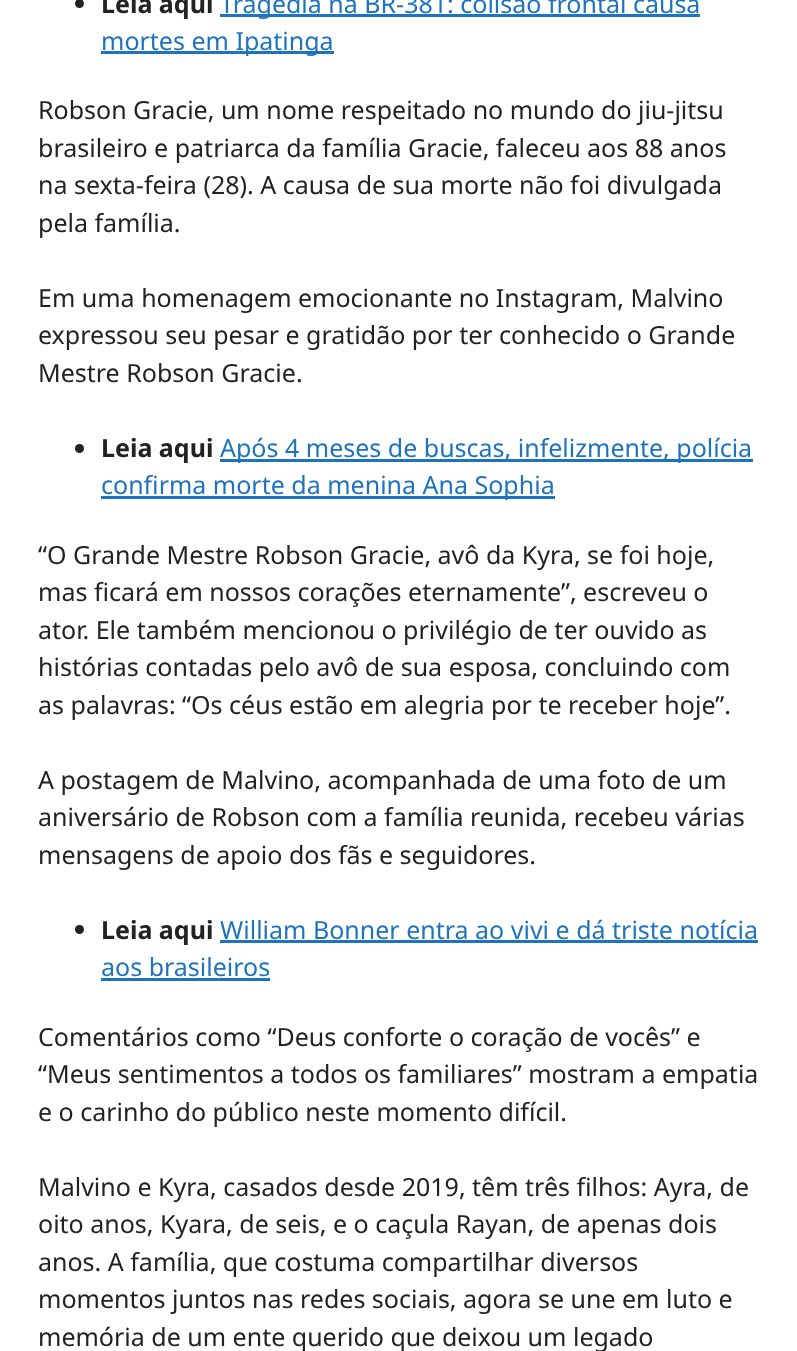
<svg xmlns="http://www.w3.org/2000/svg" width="797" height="1351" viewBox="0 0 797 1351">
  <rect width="100%" height="100%" fill="#ffffff"/>
  <circle cx="79.5" cy="3.5" r="4.5" fill="#222222"/>
  <text x="101" y="13" font-family="Noto Sans" font-size="25" font-weight="bold" fill="#222222">Leia aqui</text>
  <rect x="220" y="14" width="480" height="3" fill="#1e73be"/>
  <text x="220" y="13" font-family="Noto Sans" font-size="25" fill="#1e73be">Tragédia na BR-381: colisão frontal causa</text>
  <rect x="101" y="51" width="233" height="3" fill="#1e73be"/>
  <text x="101" y="50" font-family="Noto Sans" font-size="25" fill="#1e73be">mortes em Ipatinga</text>
  <text x="38" y="119" font-family="Noto Sans" font-size="25" fill="#222222">Robson Gracie, um nome respeitado no mundo do jiu-jitsu</text>
  <text x="38" y="157" font-family="Noto Sans" font-size="25" fill="#222222">brasileiro e patriarca da família Gracie, faleceu aos 88 anos</text>
  <text x="38" y="194" font-family="Noto Sans" font-size="25" fill="#222222">na sexta-feira (28). A causa de sua morte não foi divulgada</text>
  <text x="38" y="232" font-family="Noto Sans" font-size="25" fill="#222222">pela família.</text>
  <text x="38" y="307" font-family="Noto Sans" font-size="25" fill="#222222">Em uma homenagem emocionante no Instagram, Malvino</text>
  <text x="38" y="344" font-family="Noto Sans" font-size="25" fill="#222222">expressou seu pesar e gratidão por ter conhecido o Grande</text>
  <text x="38" y="382" font-family="Noto Sans" font-size="25" fill="#222222">Mestre Robson Gracie.</text>
  <circle cx="79.5" cy="448.5" r="4.5" fill="#222222"/>
  <text x="101" y="457" font-family="Noto Sans" font-size="25" font-weight="bold" fill="#222222">Leia aqui</text>
  <rect x="220" y="459" width="533" height="3" fill="#1e73be"/>
  <text x="220" y="457" font-family="Noto Sans" font-size="25" fill="#1e73be">Após 4 meses de buscas, infelizmente, polícia</text>
  <rect x="101" y="496" width="454" height="3" fill="#1e73be"/>
  <text x="101" y="494" font-family="Noto Sans" font-size="25" fill="#1e73be">confirma morte da menina Ana Sophia</text>
  <text x="38" y="564" font-family="Noto Sans" font-size="25" fill="#222222">“O Grande Mestre Robson Gracie, avô da Kyra, se foi hoje,</text>
  <text x="38" y="601" font-family="Noto Sans" font-size="25" fill="#222222">mas ficará em nossos corações eternamente”, escreveu o</text>
  <text x="38" y="639" font-family="Noto Sans" font-size="25" fill="#222222">ator. Ele também mencionou o privilégio de ter ouvido as</text>
  <text x="38" y="676" font-family="Noto Sans" font-size="25" fill="#222222">histórias contadas pelo avô de sua esposa, concluindo com</text>
  <text x="38" y="714" font-family="Noto Sans" font-size="25" fill="#222222">as palavras: “Os céus estão em alegria por te receber hoje”.</text>
  <text x="38" y="789" font-family="Noto Sans" font-size="25" fill="#222222">A postagem de Malvino, acompanhada de uma foto de um</text>
  <text x="38" y="826" font-family="Noto Sans" font-size="25" fill="#222222">aniversário de Robson com a família reunida, recebeu várias</text>
  <text x="38" y="864" font-family="Noto Sans" font-size="25" fill="#222222">mensagens de apoio dos fãs e seguidores.</text>
  <circle cx="79.5" cy="929.5" r="4.5" fill="#222222"/>
  <text x="101" y="939" font-family="Noto Sans" font-size="25" font-weight="bold" fill="#222222">Leia aqui</text>
  <text x="220" y="939" font-family="Noto Sans" font-size="25" fill="#1e73be">William Bonner entra ao vivi e dá triste notícia</text>
  <rect x="220" y="940" width="538" height="3" fill="#1e73be"/>
  <text x="101" y="976" font-family="Noto Sans" font-size="25" fill="#1e73be">aos brasileiros</text>
  <rect x="101" y="978" width="169" height="3" fill="#1e73be"/>
  <text x="38" y="1046" font-family="Noto Sans" font-size="25" fill="#222222">Comentários como “Deus conforte o coração de vocês” e</text>
  <text x="38" y="1083" font-family="Noto Sans" font-size="25" fill="#222222">“Meus sentimentos a todos os familiares” mostram a empatia</text>
  <text x="38" y="1121" font-family="Noto Sans" font-size="25" fill="#222222">e o carinho do público neste momento difícil.</text>
  <text x="38" y="1196" font-family="Noto Sans" font-size="25" fill="#222222">Malvino e Kyra, casados desde 2019, têm três filhos: Ayra, de</text>
  <text x="38" y="1233" font-family="Noto Sans" font-size="25" fill="#222222">oito anos, Kyara, de seis, e o caçula Rayan, de apenas dois</text>
  <text x="38" y="1271" font-family="Noto Sans" font-size="25" fill="#222222">anos. A família, que costuma compartilhar diversos</text>
  <text x="38" y="1308" font-family="Noto Sans" font-size="25" fill="#222222">momentos juntos nas redes sociais, agora se une em luto e</text>
  <text x="38" y="1346" font-family="Noto Sans" font-size="25" fill="#222222">memória de um ente querido que deixou um legado</text>
</svg>
